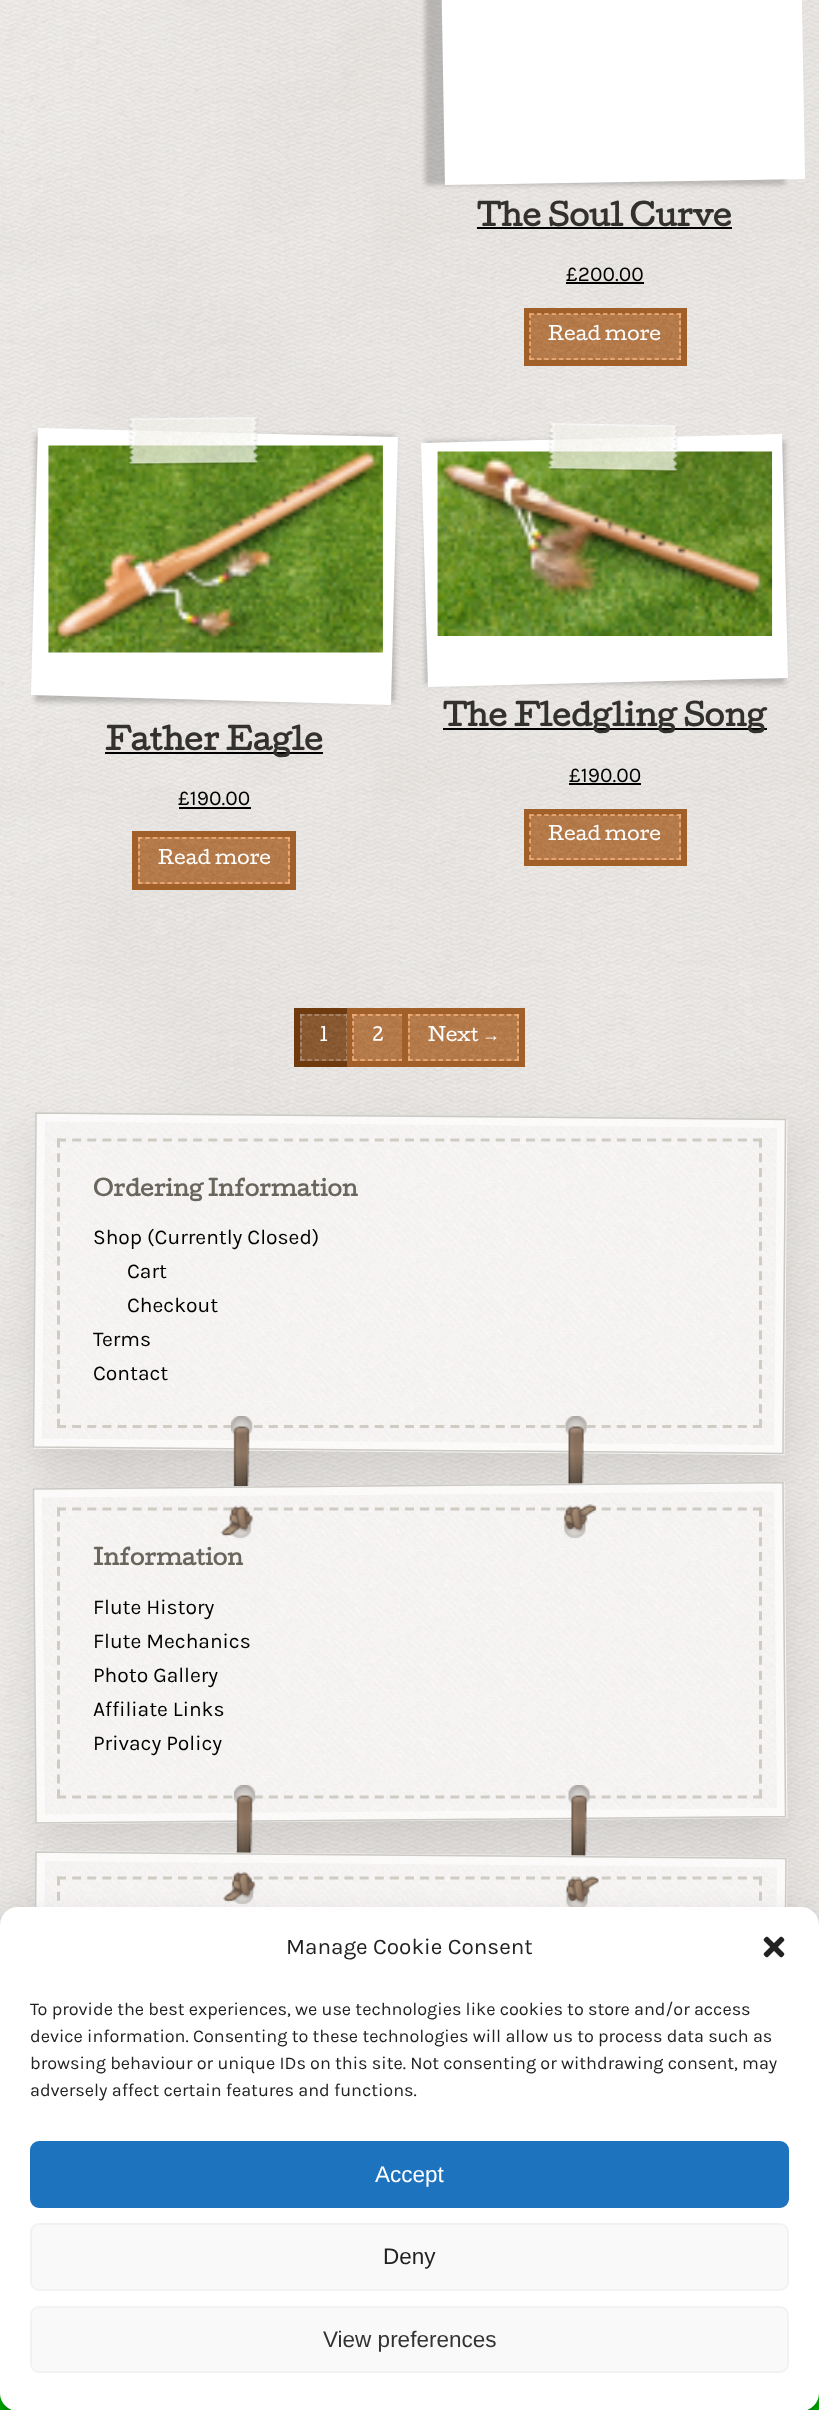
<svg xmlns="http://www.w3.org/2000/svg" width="819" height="2410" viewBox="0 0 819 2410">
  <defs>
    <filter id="blur1" x="-50%" y="-200%" width="200%" height="500%"><feGaussianBlur stdDeviation="2.5"/></filter>
    <filter id="blur2" x="-50%" y="-200%" width="200%" height="500%"><feGaussianBlur stdDeviation="21"/></filter>
    <filter id="blur3" x="-50%" y="-200%" width="200%" height="500%"><feGaussianBlur stdDeviation="4.5"/></filter>
    <filter id="blur4" x="-50%" y="-200%" width="200%" height="500%"><feGaussianBlur stdDeviation="15"/></filter>
  </defs>
  <rect width="100%" height="100%" fill="#ffffff"/>
  <image x="0" y="0" width="819" height="1925" href="img1.png"/>
  <image x="0" y="0" width="819" height="1925" href="img2.png"/>
  <rect x="425" y="-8" width="360" height="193" fill="#000000" fill-opacity="0.2" filter="url(#blur1)"/>
  <path d="M404-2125L765-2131L805 179L445 185Z" fill="#ffffff"/>
  <text x="477" y="226" font-family="Cutive" font-size="29.1" font-weight="bold" fill="#32312d">The Soul Curve</text>
  <rect x="477" y="227" width="255" height="2" fill="#000000"/>
  <text x="566" y="281" font-family="Karla" font-size="21" fill="#000000">£200.00</text>
  <rect x="566" y="282" width="78" height="2" fill="#000000"/>
  <rect x="527" y="311" width="157" height="52" fill="none" stroke="#a15f2a" stroke-width="6"/>
  <rect x="530" y="314" width="151" height="46" fill="#c3814c"/>
  <image x="529" y="313" width="152" height="47" href="img3.png"/>
  <path d="M529.5 314H681" fill="none" stroke="#f6b47f" stroke-width="1.5" stroke-dasharray="4.5 2.85"/>
  <path d="M680 313.5V360" fill="none" stroke="#f6b47f" stroke-width="1.5" stroke-dasharray="4.5 2.5"/>
  <path d="M529.5 359H681" fill="none" stroke="#f6b47f" stroke-width="1.5" stroke-dasharray="4.5 2.85"/>
  <path d="M530 313.5V360" fill="none" stroke="#f6b47f" stroke-width="1.5" stroke-dasharray="4.5 2.5"/>
  <text x="548" y="340" font-family="Cutive" font-size="18" fill="#ffffff">Read more</text>
  <rect x="35" y="435" width="360" height="267" fill="#000000" fill-opacity="0.2" filter="url(#blur1)"/>
  <path d="M38 428L398 437L391 705L31 695Z" fill="#ffffff"/>
  <image x="48" y="445" width="335" height="208" href="img5.png"/>
  <image x="128" y="417" width="131" height="49" href="img4.png"/>
  <rect x="105" y="752" width="218" height="2" fill="#000000"/>
  <text x="105" y="750" font-family="Cutive" font-size="29.1" font-weight="bold" fill="#32312d">Father Eagle</text>
  <text x="178" y="805" font-family="Karla" font-size="21" fill="#000000">£190.00</text>
  <rect x="179" y="807" width="72" height="2" fill="#000000"/>
  <rect x="135" y="834" width="158" height="53" fill="none" stroke="#a15f2a" stroke-width="6"/>
  <rect x="138" y="837" width="152" height="47" fill="#c3814c"/>
  <image x="138" y="837" width="152" height="47" href="img6.png"/>
  <path d="M138 838H289.5" fill="none" stroke="#f6b47f" stroke-width="1.5" stroke-dasharray="4.5 2.85"/>
  <path d="M289 837V883.5" fill="none" stroke="#f6b47f" stroke-width="1.5" stroke-dasharray="4.5 2.5"/>
  <path d="M138 883H289.5" fill="none" stroke="#f6b47f" stroke-width="1.5" stroke-dasharray="4.5 2.85"/>
  <path d="M139 837V883.5" fill="none" stroke="#f6b47f" stroke-width="1.5" stroke-dasharray="4.5 2.5"/>
  <text x="158" y="864" font-family="Cutive" font-size="18" fill="#ffffff">Read more</text>
  <rect x="425" y="441" width="360" height="243" fill="#000000" fill-opacity="0.2" filter="url(#blur1)"/>
  <path d="M421 443L782 434L788 678L428 687Z" fill="#ffffff"/>
  <image x="437" y="451" width="336" height="185" href="img8.png"/>
  <image x="548" y="423" width="130" height="50" href="img7.png"/>
  <rect x="443" y="728" width="324" height="2" fill="#000000"/>
  <text x="443" y="726" font-family="Cutive" font-size="29.1" font-weight="bold" fill="#32312d">The Fledgling Song</text>
  <text x="569" y="782" font-family="Karla" font-size="21" fill="#000000">£190.00</text>
  <rect x="569" y="783" width="72" height="2" fill="#000000"/>
  <rect x="527" y="812" width="157" height="51" fill="none" stroke="#a15f2a" stroke-width="6"/>
  <rect x="530" y="815" width="151" height="45" fill="#c3814c"/>
  <image x="529" y="814" width="152" height="46" href="img9.png"/>
  <path d="M529.5 815H681" fill="none" stroke="#f6b47f" stroke-width="1.5" stroke-dasharray="4.5 2.85"/>
  <path d="M680 814.5V859.5" fill="none" stroke="#f6b47f" stroke-width="1.5" stroke-dasharray="4.5 3.6"/>
  <path d="M529.5 859H681" fill="none" stroke="#f6b47f" stroke-width="1.5" stroke-dasharray="4.5 2.85"/>
  <path d="M530 814.5V859.5" fill="none" stroke="#f6b47f" stroke-width="1.5" stroke-dasharray="4.5 3.6"/>
  <text x="548" y="840" font-family="Cutive" font-size="18" fill="#ffffff">Read more</text>
  <rect x="297" y="1011" width="54" height="53" fill="none" stroke="#703a0f" stroke-width="6"/>
  <rect x="300" y="1014" width="47" height="47" fill="#925c31"/>
  <image x="300" y="1014" width="47" height="47" href="img10.png"/>
  <path d="M300 1015H348" fill="none" stroke="#af9179" stroke-width="1.5" stroke-dasharray="4.5 2.75"/>
  <path d="M347 1014V1060.5" fill="none" stroke="#af9179" stroke-width="1.5" stroke-dasharray="4.5 2.5"/>
  <path d="M300 1060H348" fill="none" stroke="#af9179" stroke-width="1.5" stroke-dasharray="4.5 2.75"/>
  <path d="M301 1014V1060.5" fill="none" stroke="#af9179" stroke-width="1.5" stroke-dasharray="4.5 2.5"/>
  <text x="319" y="1041" font-family="Cutive" font-size="18" fill="#ffffff">1</text>
  <rect x="350" y="1011" width="57" height="53" fill="none" stroke="#a15f2a" stroke-width="6"/>
  <rect x="353" y="1014" width="49" height="47" fill="#c3814c"/>
  <image x="352" y="1014" width="50" height="47" href="img11.png"/>
  <path d="M352.5 1015H403.5M352.5 1060H403.5" fill="none" stroke="#f6b47f" stroke-width="1.5" stroke-dasharray="4.5 3.25"/>
  <path d="M353 1014V1060.5" fill="none" stroke="#f6b47f" stroke-width="1.5" stroke-dasharray="4.5 2.5"/>
  <text x="372" y="1041" font-family="Cutive" font-size="18" fill="#ffffff">2</text>
  <rect x="405" y="1011" width="117" height="53" fill="none" stroke="#a15f2a" stroke-width="6"/>
  <rect x="408" y="1014" width="111" height="47" fill="#c3814c"/>
  <image x="408" y="1014" width="111" height="47" href="img12.png"/>
  <path d="M408 1015H519" fill="none" stroke="#f6b47f" stroke-width="1.5" stroke-dasharray="4.5 3.1"/>
  <path d="M518 1014V1060.5" fill="none" stroke="#f6b47f" stroke-width="1.5" stroke-dasharray="4.5 2.5"/>
  <path d="M408 1060H519" fill="none" stroke="#f6b47f" stroke-width="1.5" stroke-dasharray="4.5 3.1"/>
  <path d="M409 1014V1060.5" fill="none" stroke="#f6b47f" stroke-width="1.5" stroke-dasharray="4.5 2.5"/>
  <text x="428" y="1041" font-family="Cutive" font-size="18" fill="#ffffff">Next</text>
  <text x="482" y="1041" font-family="Liberation Sans" font-size="18" fill="#ffffff">→</text>
  <rect x="35" y="1137" width="750" height="335" fill="#000000" fill-opacity="0.1" filter="url(#blur2)"/>
  <path d="M35 1112L786 1119L784 1454L33 1448Z" fill="#e5e4df"/>
  <image x="33" y="1112" width="755" height="344" href="img13.png"/>
  <path d="M41 1117.5L781 1124L778 1449L38 1442.5Z" fill="none" stroke="#ffffff" stroke-opacity="0.6" stroke-width="8"/>
  <path d="M36 1113L785.5 1119.5L783 1453.5L33.5 1447Z" fill="none" stroke="#cbcac5" stroke-width="1.5"/>
  <path d="M57 1140H762" fill="none" stroke="#ceccc3" stroke-width="3" stroke-dasharray="9 6.13"/>
  <path d="M760.5 1138.5V1428" fill="none" stroke="#ceccc3" stroke-width="3" stroke-dasharray="9 5.76"/>
  <path d="M57 1426.5H762" fill="none" stroke="#ceccc3" stroke-width="3" stroke-dasharray="9 6.13"/>
  <path d="M58.5 1138.5V1428" fill="none" stroke="#ceccc3" stroke-width="3" stroke-dasharray="9 5.76"/>
  <text x="93" y="1196" font-family="Cutive" font-size="21" font-weight="bold" fill="#68665d">Ordering Information</text>
  <text x="93" y="1244" font-family="Karla" font-size="21" fill="#000000">Shop (Currently Closed)</text>
  <text x="127" y="1278" font-family="Karla" font-size="21" fill="#000000">Cart</text>
  <text x="127" y="1312" font-family="Karla" font-size="21" fill="#000000">Checkout</text>
  <text x="93" y="1346" font-family="Karla" font-size="21" fill="#000000">Terms</text>
  <text x="93" y="1380" font-family="Karla" font-size="21" fill="#000000">Contact</text>
  <image x="231" y="1416" width="356" height="71" href="img14.png"/>
  <rect x="35" y="1506" width="750" height="336" fill="#000000" fill-opacity="0.1" filter="url(#blur2)"/>
  <path d="M33 1488L784 1482L786 1817L35 1824Z" fill="#e5e4df"/>
  <image x="33" y="1481" width="755" height="344" href="img15.png"/>
  <path d="M38 1493.5L778 1487.5L781 1812L41 1818.5Z" fill="none" stroke="#ffffff" stroke-opacity="0.6" stroke-width="8"/>
  <path d="M33.5 1489L783 1482.5L785.5 1816.5L36 1823Z" fill="none" stroke="#cbcac5" stroke-width="1.5"/>
  <path d="M57 1509H762" fill="none" stroke="#ceccc3" stroke-width="3" stroke-dasharray="9 6.13"/>
  <image x="220" y="1504" width="377" height="35" href="img16.png"/>
  <path d="M760.5 1507.5V1798.5" fill="none" stroke="#ceccc3" stroke-width="3" stroke-dasharray="9 5.83"/>
  <path d="M57 1797H762" fill="none" stroke="#ceccc3" stroke-width="3" stroke-dasharray="9 6.13"/>
  <path d="M58.5 1507.5V1798.5" fill="none" stroke="#ceccc3" stroke-width="3" stroke-dasharray="9 5.83"/>
  <text x="93" y="1565" font-family="Cutive" font-size="21" font-weight="bold" fill="#68665d">Information</text>
  <text x="93" y="1614" font-family="Karla" font-size="21" fill="#000000">Flute History</text>
  <text x="93" y="1648" font-family="Karla" font-size="21" fill="#000000">Flute Mechanics</text>
  <text x="93" y="1682" font-family="Karla" font-size="21" fill="#000000">Photo Gallery</text>
  <text x="93" y="1716" font-family="Karla" font-size="21" fill="#000000">Affiliate Links</text>
  <text x="93" y="1750" font-family="Karla" font-size="21" fill="#000000">Privacy Policy</text>
  <image x="234" y="1785" width="356" height="71" href="img17.png"/>
  <rect x="35" y="1875" width="750" height="345" fill="#000000" fill-opacity="0.1" filter="url(#blur2)"/>
  <path d="M35 1851L787 1858L784 2202L32 2195Z" fill="#e5e4df"/>
  <image x="35" y="1850" width="753" height="57" href="img18.png"/>
  <path d="M41 1857L781 1863.5L778 2196L38 2190Z" fill="none" stroke="#ffffff" stroke-opacity="0.6" stroke-width="8"/>
  <path d="M36 1852L786 1858.5L783 2201L33 2194.5Z" fill="none" stroke="#cbcac5" stroke-width="1.5"/>
  <path d="M57 1878H762" fill="none" stroke="#ceccc3" stroke-width="3" stroke-dasharray="9 6.13"/>
  <image x="222" y="1871" width="377" height="36" href="img19.png"/>
  <path d="M760.5 1876.5V2176.5" fill="none" stroke="#ceccc3" stroke-width="3" stroke-dasharray="9 6.31"/>
  <path d="M58.5 1876.5V2176.5" fill="none" stroke="#ceccc3" stroke-width="3" stroke-dasharray="9 6.31"/>
  <rect x="0" y="2393" width="819" height="17" fill="#00c000"/>
  <rect x="0" y="1916" width="819" height="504" rx="18" fill="#000000" fill-opacity="0.23" filter="url(#blur3)"/>
  <rect x="0" y="1922" width="819" height="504" rx="18" fill="#000000" fill-opacity="0.19" filter="url(#blur4)"/>
  <rect x="0" y="1907" width="819" height="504" rx="18" fill="#ffffff"/>
  <text x="286" y="1954" font-family="Karla" font-size="22.5" fill="#222222">Manage Cookie Consent</text>
  <image x="763" y="1936" width="22" height="22" href="img20.png"/>
  <text x="30" y="2015" font-family="Karla" font-size="18" fill="#222222">To provide the best experiences, we use technologies like cookies to store and/or access</text>
  <text x="30" y="2042" font-family="Karla" font-size="18" fill="#222222">device information. Consenting to these technologies will allow us to process data such as</text>
  <text x="30" y="2069" font-family="Karla" font-size="18" fill="#222222">browsing behaviour or unique IDs on this site. Not consenting or withdrawing consent, may</text>
  <text x="30" y="2096" font-family="Karla" font-size="18" fill="#222222">adversely affect certain features and functions.</text>
  <rect x="31" y="2142" width="757" height="65" rx="8" fill="#1e73be" stroke="#1e73be" stroke-width="2"/>
  <text x="375" y="2182" font-family="Liberation Sans" font-size="22.5" fill="#ffffff">Accept</text>
  <rect x="31" y="2224" width="757" height="66" rx="8" fill="#f9f9f9" stroke="#f2f2f2" stroke-width="2"/>
  <text x="383" y="2264" font-family="Liberation Sans" font-size="22.5" fill="#222222">Deny</text>
  <rect x="31" y="2307" width="757" height="65" rx="8" fill="#f9f9f9" stroke="#f2f2f2" stroke-width="2"/>
  <text x="323" y="2347" font-family="Liberation Sans" font-size="22.5" fill="#333333">View preferences</text>
</svg>
